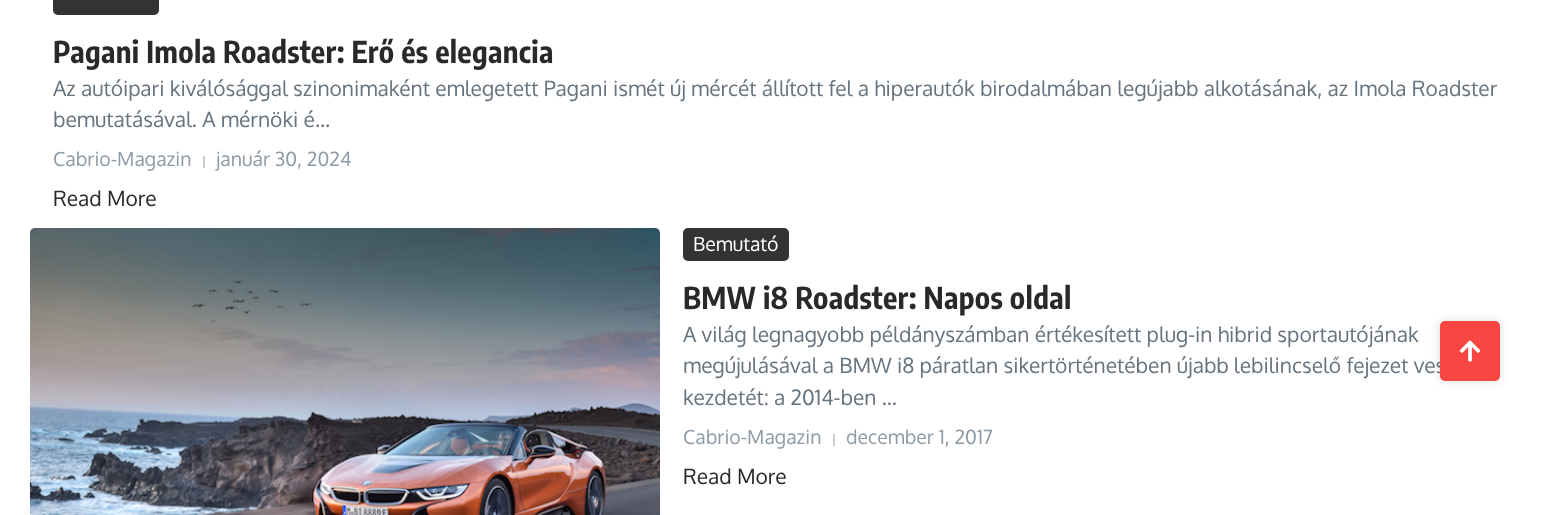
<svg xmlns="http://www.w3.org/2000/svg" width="1544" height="515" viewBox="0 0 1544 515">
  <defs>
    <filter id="blur1" x="-50%" y="-200%" width="200%" height="500%"><feGaussianBlur stdDeviation="5"/></filter>
  </defs>
  <rect width="100%" height="100%" fill="#ffffff"/>
  <rect x="53" y="-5" width="106" height="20" rx="5" fill="#333333"/>
  <text x="53" y="63" font-family="Encode Sans Condensed" font-size="30" font-weight="bold" letter-spacing="0.3" fill="#292929">Pagani Imola Roadster: Erő és elegancia</text>
  <text x="53" y="96" font-family="Oxygen" font-size="21" fill="#67737e">Az autóipari kiválósággal szinonimaként emlegetett Pagani ismét új mércét állított fel a hiperautók birodalmában legújabb alkotásának, az Imola Roadster</text>
  <text x="53" y="127" font-family="Oxygen" font-size="21" fill="#67737e">bemutatásával. A mérnöki é...</text>
  <text x="53" y="166" font-family="Oxygen" font-size="19.5" fill="#8e9ba7">Cabrio-Magazin</text>
  <rect x="203" y="156" width="2" height="12" fill="#c7cdd3"/>
  <text x="216" y="166" font-family="Oxygen" font-size="19.5" fill="#8e9ba7">január 30, 2024</text>
  <text x="53" y="206" font-family="Oxygen" font-size="21" fill="#292929">Read More</text>
  <image x="30" y="228" width="630" height="287" href="img1.png"/>
  <rect x="683" y="228" width="106" height="33" rx="5" fill="#333333"/>
  <text x="693" y="251" font-family="Oxygen" font-size="19.5" fill="#ffffff">Bemutató</text>
  <text x="683" y="309" font-family="Encode Sans Condensed" font-size="30" font-weight="bold" letter-spacing="0.3" fill="#292929">BMW i8 Roadster: Napos oldal</text>
  <text x="683" y="342" font-family="Oxygen" font-size="21" fill="#67737e">A világ legnagyobb példányszámban értékesített plug-in hibrid sportautójának</text>
  <text x="683" y="373" font-family="Oxygen" font-size="21" fill="#67737e">megújulásával a BMW i8 páratlan sikertörténetében újabb lebilincselő fejezet ves</text>
  <text x="683" y="405" font-family="Oxygen" font-size="21" fill="#67737e">kezdetét: a 2014-ben ...</text>
  <text x="683" y="444" font-family="Oxygen" font-size="19.5" fill="#8e9ba7">Cabrio-Magazin</text>
  <rect x="833" y="434" width="2" height="12" fill="#c7cdd3"/>
  <text x="846" y="444" font-family="Oxygen" font-size="19.5" fill="#8e9ba7">december 1, 2017</text>
  <text x="683" y="484" font-family="Oxygen" font-size="21" fill="#292929">Read More</text>
  <rect x="1440" y="321" width="60" height="60" rx="5" fill="#000000" fill-opacity="0.15" filter="url(#blur1)"/>
  <rect x="1440" y="321" width="60" height="60" rx="5" fill="#f84643"/>
  <image x="1459" y="340" width="22" height="22" href="img2.png"/>
</svg>
